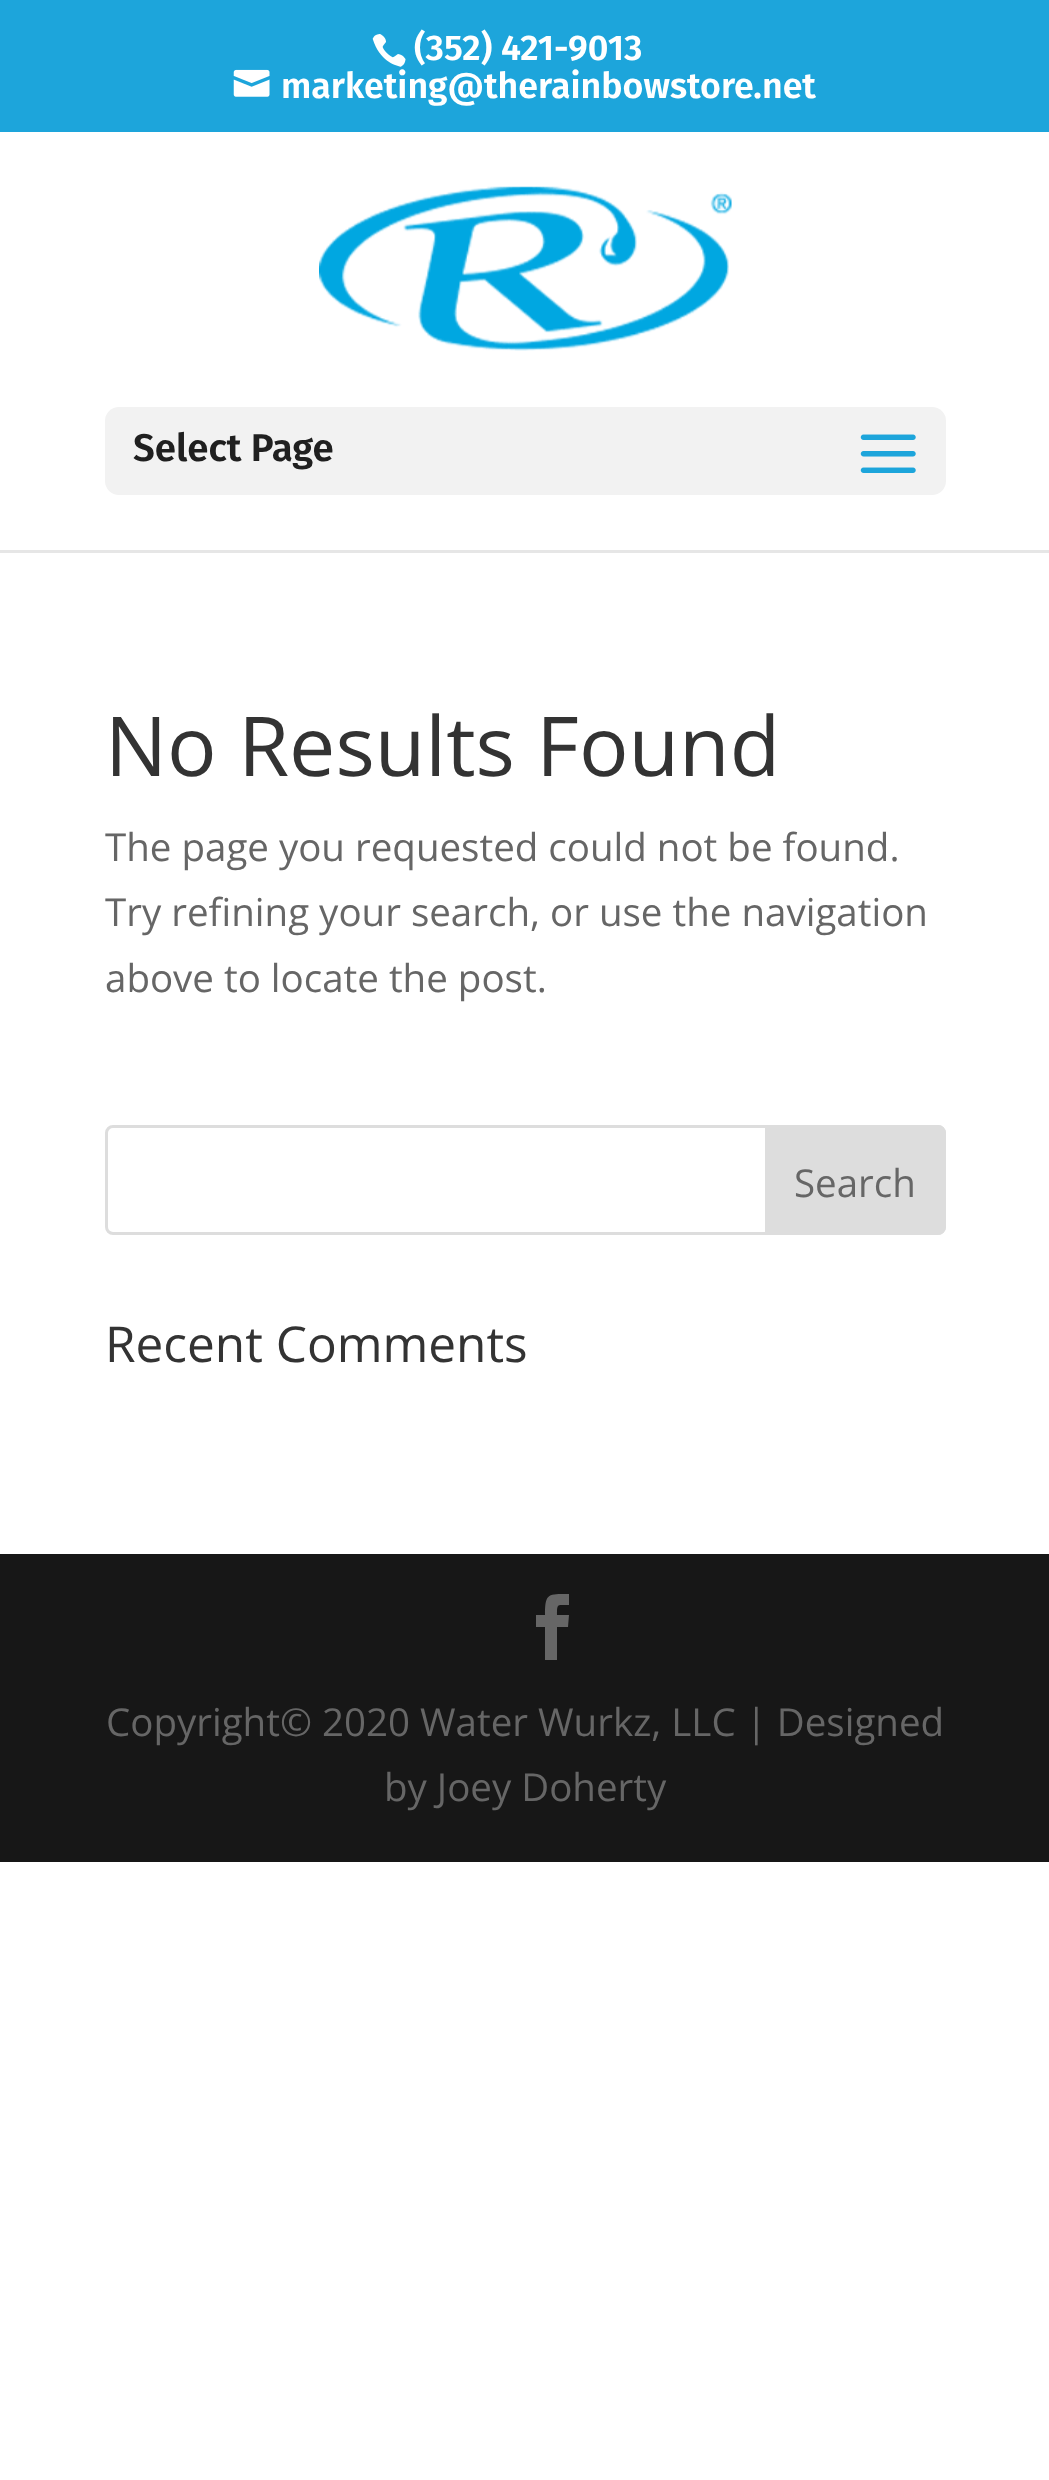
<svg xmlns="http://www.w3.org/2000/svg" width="1049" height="2480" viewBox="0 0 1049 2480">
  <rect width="100%" height="100%" fill="#ffffff"/>
  <rect x="0" y="0" width="1049" height="132" fill="#1da5db"/>
  <image x="372" y="34" width="34" height="33" href="img1.png"/>
  <text x="414" y="60" font-family="Fira Sans" font-size="35.75" font-weight="600" fill="#ffffff">(352) 421-9013</text>
  <image x="233" y="69" width="37" height="28" href="img2.png"/>
  <text x="281" y="98" font-family="Fira Sans" font-size="35.75" font-weight="600" fill="#ffffff">marketing@therainbowstore.net</text>
  <path d="M0 550V553H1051V135H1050V550Z" fill="#e6e6e6"/>
  <image x="319" y="186" width="413" height="165" href="img3.png"/>
  <rect x="105" y="407" width="841" height="88" rx="14" fill="#f2f2f2"/>
  <text x="133" y="461" font-family="Fira Sans" font-size="38.5" font-weight="600" fill="#202020">Select Page</text>
  <image x="860" y="434" width="56" height="39" href="img4.png"/>
  <text x="105" y="776" font-family="Open Sans" font-size="82.5" fill="#333333">No Results Found</text>
  <text x="105" y="861" font-family="Open Sans" font-size="38.5" fill="#666666">The page you requested could not be found.</text>
  <text x="105" y="926" font-family="Open Sans" font-size="38.5" fill="#666666">Try refining your search, or use the navigation</text>
  <text x="105" y="992" font-family="Open Sans" font-size="38.5" fill="#666666">above to locate the post.</text>
  <rect x="106.5" y="1126.5" width="838" height="107" rx="6.5" fill="none" stroke="#dddddd" stroke-width="3"/>
  <path d="M766.5 1126.5H938C941.5 1126.5 944.5 1129.5 944.5 1133V1227C944.5 1230.5 941.5 1233.5 938 1233.5H766.5Z" fill="#dddddd" stroke="#dddddd" stroke-width="3"/>
  <text x="794" y="1197" font-family="Open Sans" font-size="38.5" fill="#666666">Search</text>
  <text x="105" y="1362" font-family="Open Sans" font-size="49.5" fill="#333333">Recent Comments</text>
  <rect x="0" y="1554" width="1049" height="308" fill="#171717"/>
  <path d="M545 1660H557V1627H568L569 1615H557C557 1603 557 1605 569 1605V1594C548 1594 545 1593 545 1615H536V1627H545Z" fill="#666666"/>
  <text x="106" y="1736" font-family="Open Sans" font-size="38.5" fill="#666666">Copyright© 2020 Water Wurkz, LLC | Designed</text>
  <text x="384" y="1801" font-family="Open Sans" font-size="38.5" fill="#666666">by Joey Doherty</text>
</svg>
